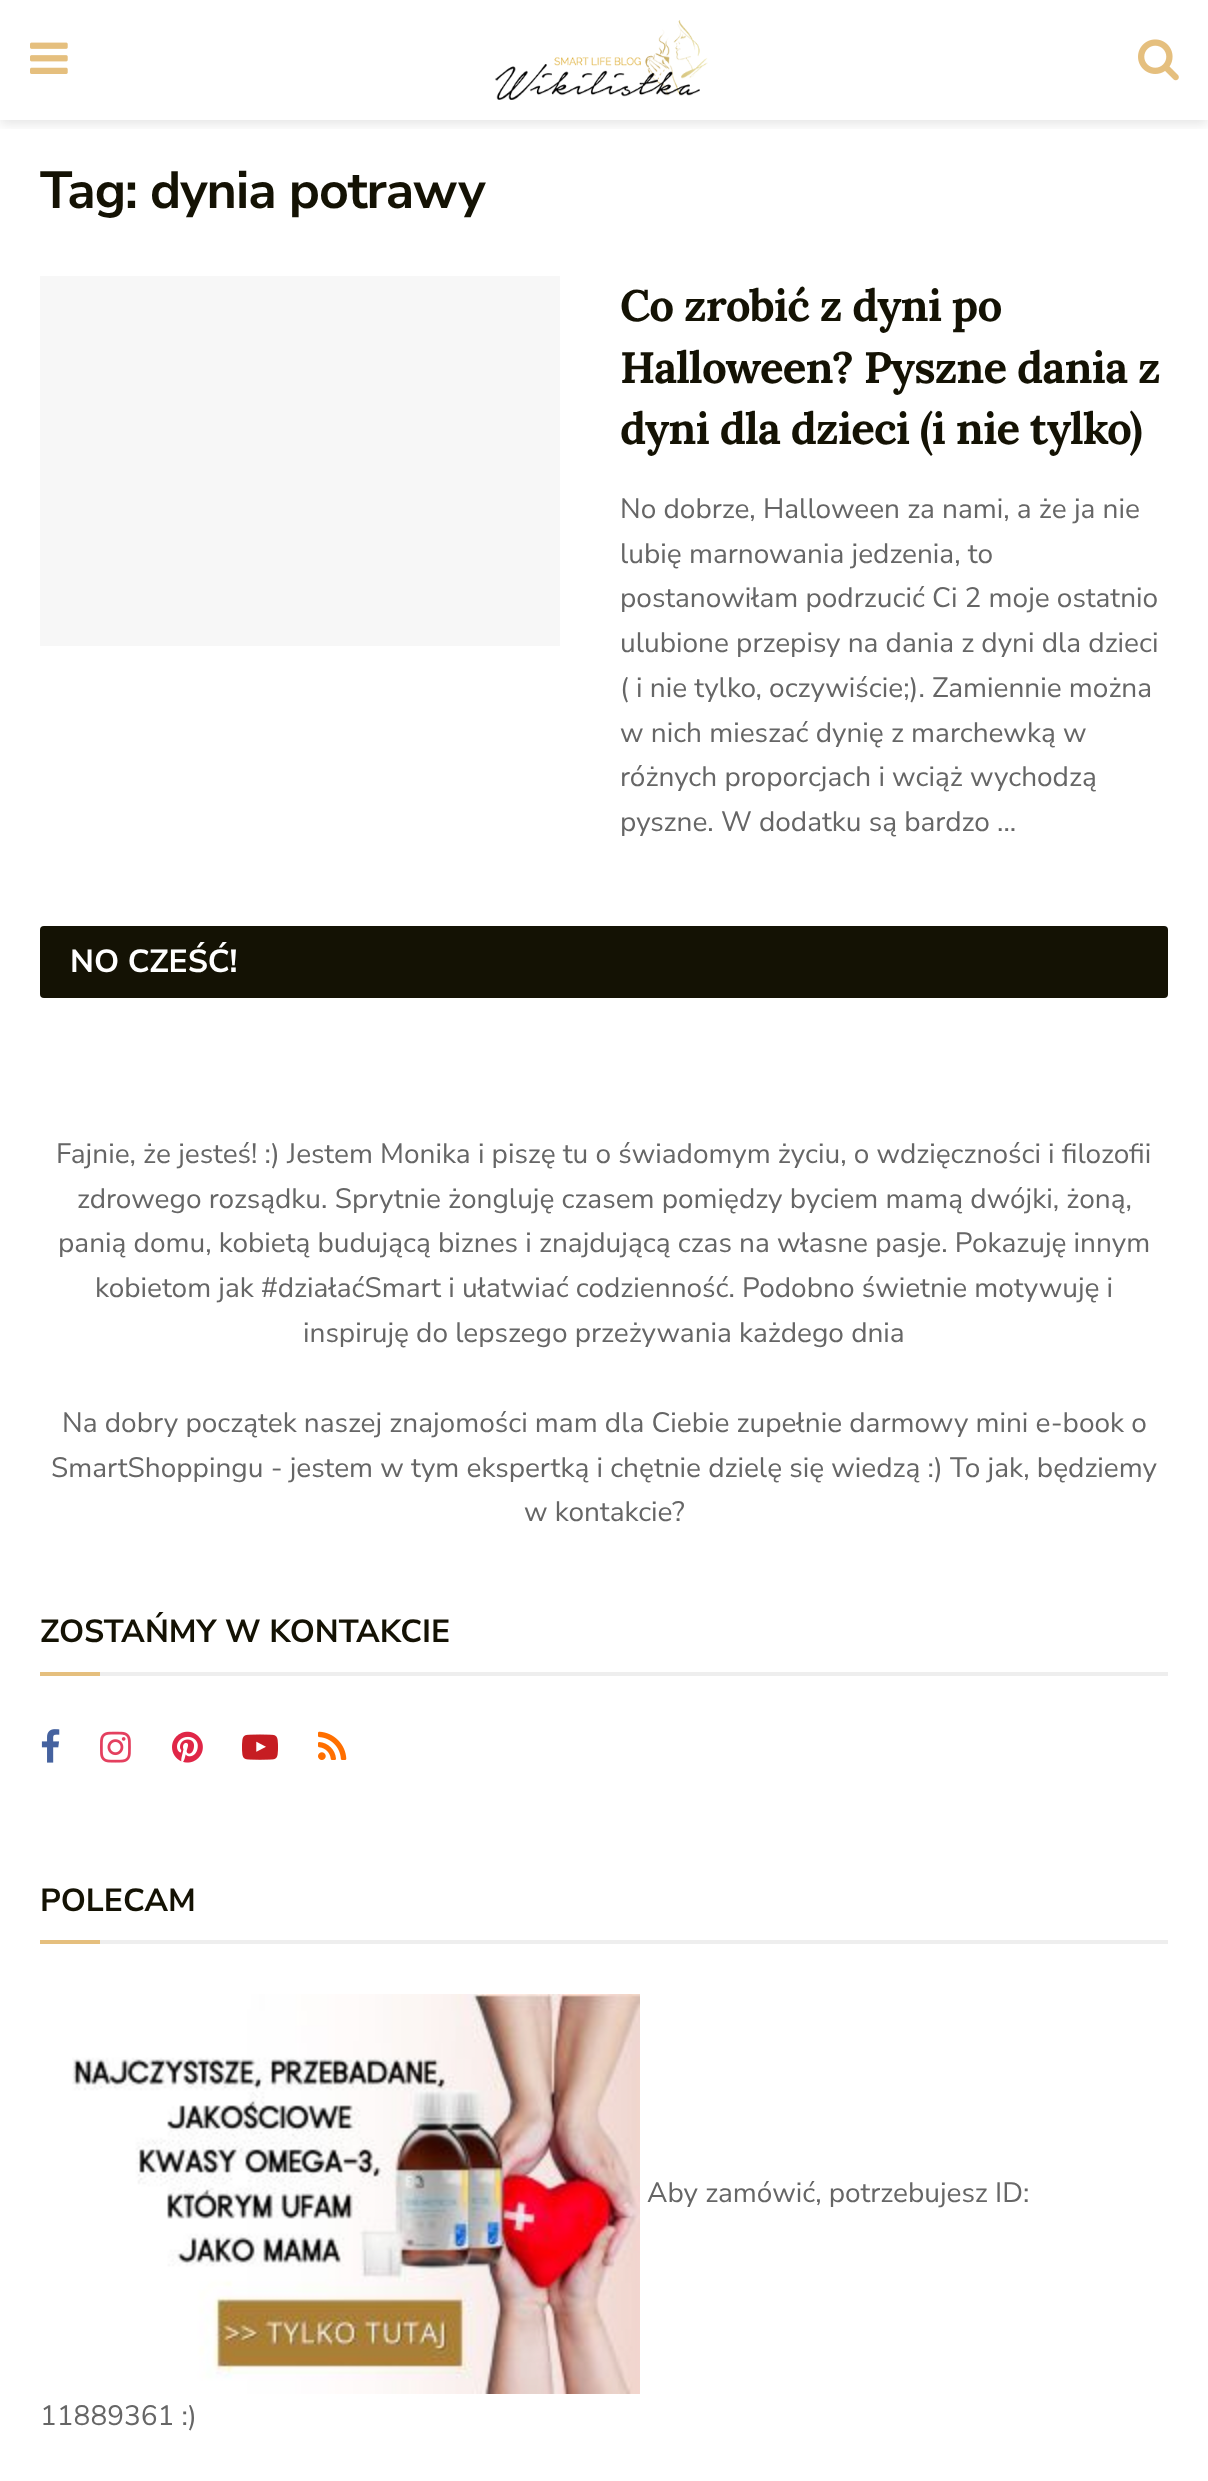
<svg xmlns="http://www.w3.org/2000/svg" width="1208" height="2481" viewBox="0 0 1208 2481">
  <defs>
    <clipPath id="clip1"><rect x="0" y="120" width="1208" height="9"/></clipPath>
    <filter id="blur1" x="-50%" y="-200%" width="200%" height="500%"><feGaussianBlur stdDeviation="6"/></filter>
  </defs>
  <rect width="100%" height="100%" fill="#ffffff"/>
  <g clip-path="url(#clip1)">
    <rect x="0" y="4" width="1208" height="120" fill="#000000" fill-opacity="0.1" filter="url(#blur1)"/>
  </g>
  <image x="30" y="42" width="38" height="32" href="img1.png"/>
  <image x="495" y="20" width="213" height="80" href="img2.png"/>
  <image x="1138" y="39" width="41" height="42" href="img3.png"/>
  <text x="40" y="208" font-family="Nunito Sans" font-size="52" font-weight="bold" letter-spacing="-1" fill="#141204">Tag: dynia potrawy</text>
  <rect x="40" y="276" width="520" height="370" fill="#f7f7f7"/>
  <text x="620" y="321" font-family="Lora" font-size="44" font-weight="bold" letter-spacing="-0.9" fill="#141204">Co zrobić z dyni po</text>
  <text x="620" y="383" font-family="Lora" font-size="44" font-weight="bold" letter-spacing="-0.9" fill="#141204">Halloween? Pyszne dania z</text>
  <text x="620" y="444" font-family="Lora" font-size="44" font-weight="bold" letter-spacing="-0.9" fill="#141204">dyni dla dzieci (i nie tylko)</text>
  <text x="620" y="518" font-family="Nunito Sans" font-size="28" fill="#666666">No dobrze, Halloween za nami, a że ja nie</text>
  <text x="620" y="563" font-family="Nunito Sans" font-size="28" fill="#666666">lubię marnowania jedzenia, to</text>
  <text x="620" y="607" font-family="Nunito Sans" font-size="28" fill="#666666">postanowiłam podrzucić Ci 2 moje ostatnio</text>
  <text x="620" y="652" font-family="Nunito Sans" font-size="28" fill="#666666">ulubione przepisy na dania z dyni dla dzieci</text>
  <text x="620" y="697" font-family="Nunito Sans" font-size="28" fill="#666666">( i nie tylko, oczywiście;). Zamiennie można</text>
  <text x="620" y="742" font-family="Nunito Sans" font-size="28" fill="#666666">w nich mieszać dynię z marchewką w</text>
  <text x="620" y="786" font-family="Nunito Sans" font-size="28" fill="#666666">różnych proporcjach i wciąż wychodzą</text>
  <text x="620" y="831" font-family="Nunito Sans" font-size="28" fill="#666666">pyszne. W dodatku są bardzo ...</text>
  <rect x="40" y="926" width="1128" height="72" rx="4" fill="#141204"/>
  <text x="70" y="972" font-family="Nunito Sans" font-size="32" font-weight="bold" fill="#ffffff">NO CZEŚĆ!</text>
  <text x="56" y="1163" font-family="Nunito Sans" font-size="28" fill="#666666">Fajnie, że jesteś! :) Jestem Monika i piszę tu o świadomym życiu, o wdzięczności i filozofii</text>
  <text x="77" y="1208" font-family="Nunito Sans" font-size="28" fill="#666666">zdrowego rozsądku. Sprytnie żongluję czasem pomiędzy byciem mamą dwójki, żoną,</text>
  <text x="58" y="1252" font-family="Nunito Sans" font-size="28" fill="#666666">panią domu, kobietą budującą biznes i znajdującą czas na własne pasje. Pokazuję innym</text>
  <text x="95" y="1297" font-family="Nunito Sans" font-size="28" fill="#666666">kobietom jak #działaćSmart i ułatwiać codzienność. Podobno świetnie motywuję i</text>
  <text x="303" y="1342" font-family="Nunito Sans" font-size="28" fill="#666666">inspiruję do lepszego przeżywania każdego dnia</text>
  <text x="62" y="1432" font-family="Nunito Sans" font-size="28" fill="#666666">Na dobry początek naszej znajomości mam dla Ciebie zupełnie darmowy mini e-book o</text>
  <text x="51" y="1477" font-family="Nunito Sans" font-size="28" fill="#666666">SmartShoppingu - jestem w tym ekspertką i chętnie dzielę się wiedzą :) To jak, będziemy</text>
  <text x="524" y="1521" font-family="Nunito Sans" font-size="28" fill="#666666">w kontakcie?</text>
  <rect x="100" y="1672" width="1068" height="4" fill="#eeeeee"/>
  <text x="40" y="1642" font-family="Nunito Sans" font-size="32" font-weight="bold" fill="#141204">ZOSTAŃMY W KONTAKCIE</text>
  <rect x="40" y="1672" width="60" height="4" fill="#e5bf7e"/>
  <image x="41" y="1729" width="19" height="34" href="img4.png"/>
  <image x="100" y="1731" width="31" height="32" href="img5.png"/>
  <image x="172" y="1731" width="31" height="32" href="img6.png"/>
  <image x="242" y="1734" width="36" height="26" href="img7.png"/>
  <image x="318" y="1731" width="29" height="29" href="img8.png"/>
  <rect x="100" y="1940" width="1068" height="4" fill="#eeeeee"/>
  <text x="40" y="1911" font-family="Nunito Sans" font-size="32" font-weight="bold" fill="#141204">POLECAM</text>
  <rect x="40" y="1940" width="60" height="4" fill="#e5bf7e"/>
  <image x="72" y="1994" width="568" height="400" href="img9.png"/>
  <text x="647" y="2202" font-family="Nunito Sans" font-size="28" fill="#666666">Aby zamówić, potrzebujesz ID:</text>
  <text x="40" y="2425" font-family="Nunito Sans" font-size="28" fill="#666666">11889361 :)</text>
</svg>
